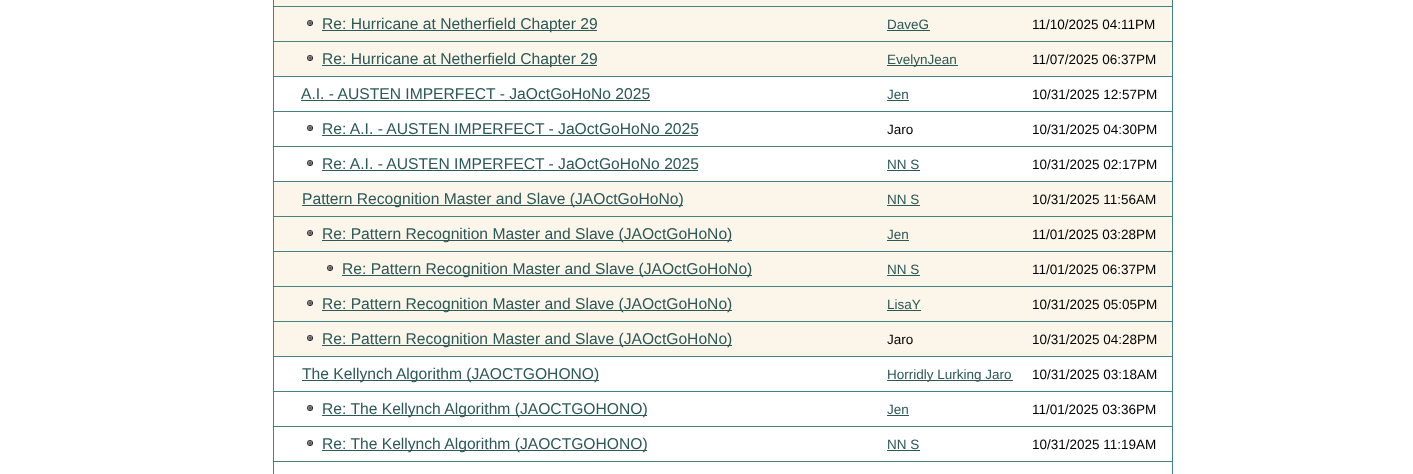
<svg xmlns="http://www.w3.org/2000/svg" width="1413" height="474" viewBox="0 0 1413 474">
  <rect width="100%" height="100%" fill="#ffffff"/>
  <rect x="1172" y="0" width="1" height="474" fill="#428484"/>
  <rect x="273" y="0" width="1" height="474" fill="#428484"/>
  <rect x="274" y="0" width="898" height="6" fill="#fbf6e9"/>
  <rect x="274" y="6" width="898" height="1" fill="#428484"/>
  <rect x="274" y="7" width="898" height="34" fill="#fbf6e9"/>
  <rect x="274" y="41" width="898" height="1" fill="#428484"/>
  <image x="307" y="20" width="6" height="6" href="img1.png"/>
  <rect x="322" y="30" width="275" height="1" fill="#2c5858"/>
  <text x="322" y="29" font-family="Liberation Sans" font-size="15.65" fill="#2c5858">Re: Hurricane at Netherfield Chapter 29</text>
  <text x="887" y="29" font-family="Liberation Sans" font-size="13.5" fill="#2c5858">DaveG</text>
  <rect x="887" y="30" width="43" height="1" fill="#2c5858"/>
  <text x="1032" y="29" font-family="Liberation Sans" font-size="13.5" fill="#000000">11/10/2025 04:11PM</text>
  <rect x="274" y="42" width="898" height="34" fill="#fbf6e9"/>
  <rect x="274" y="76" width="898" height="1" fill="#428484"/>
  <image x="307" y="55" width="6" height="6" href="img1.png"/>
  <rect x="322" y="65" width="275" height="1" fill="#2c5858"/>
  <text x="322" y="64" font-family="Liberation Sans" font-size="15.65" fill="#2c5858">Re: Hurricane at Netherfield Chapter 29</text>
  <rect x="887" y="65" width="71" height="1" fill="#2c5858"/>
  <text x="887" y="64" font-family="Liberation Sans" font-size="13.5" fill="#2c5858">EvelynJean</text>
  <text x="1032" y="64" font-family="Liberation Sans" font-size="13.5" fill="#000000">11/07/2025 06:37PM</text>
  <rect x="274" y="111" width="898" height="1" fill="#428484"/>
  <text x="301" y="99" font-family="Liberation Sans" font-size="15.65" fill="#2c5858">A.I. - AUSTEN IMPERFECT - JaOctGoHoNo 2025</text>
  <rect x="301" y="100" width="349" height="1" fill="#2c5858"/>
  <text x="887" y="99" font-family="Liberation Sans" font-size="13.5" fill="#2c5858">Jen</text>
  <rect x="887" y="100" width="22" height="1" fill="#2c5858"/>
  <text x="1032" y="99" font-family="Liberation Sans" font-size="13.5" fill="#000000">10/31/2025 12:57PM</text>
  <rect x="274" y="146" width="898" height="1" fill="#428484"/>
  <image x="307" y="125" width="6" height="6" href="img1.png"/>
  <text x="322" y="134" font-family="Liberation Sans" font-size="15.65" fill="#2c5858">Re: A.I. - AUSTEN IMPERFECT - JaOctGoHoNo 2025</text>
  <rect x="322" y="135" width="376" height="1" fill="#2c5858"/>
  <text x="887" y="134" font-family="Liberation Sans" font-size="13.5" fill="#000000">Jaro</text>
  <text x="1032" y="134" font-family="Liberation Sans" font-size="13.5" fill="#000000">10/31/2025 04:30PM</text>
  <rect x="274" y="181" width="898" height="1" fill="#428484"/>
  <image x="307" y="160" width="6" height="6" href="img1.png"/>
  <text x="322" y="169" font-family="Liberation Sans" font-size="15.65" fill="#2c5858">Re: A.I. - AUSTEN IMPERFECT - JaOctGoHoNo 2025</text>
  <rect x="322" y="170" width="376" height="1" fill="#2c5858"/>
  <text x="887" y="169" font-family="Liberation Sans" font-size="13.5" fill="#2c5858">NN S</text>
  <rect x="887" y="170" width="33" height="1" fill="#2c5858"/>
  <text x="1032" y="169" font-family="Liberation Sans" font-size="13.5" fill="#000000">10/31/2025 02:17PM</text>
  <rect x="274" y="182" width="898" height="34" fill="#fbf6e9"/>
  <rect x="274" y="216" width="898" height="1" fill="#428484"/>
  <rect x="302" y="205" width="381" height="1" fill="#2c5858"/>
  <text x="302" y="204" font-family="Liberation Sans" font-size="15.65" fill="#2c5858">Pattern Recognition Master and Slave (JAOctGoHoNo)</text>
  <text x="887" y="204" font-family="Liberation Sans" font-size="13.5" fill="#2c5858">NN S</text>
  <rect x="887" y="205" width="33" height="1" fill="#2c5858"/>
  <text x="1032" y="204" font-family="Liberation Sans" font-size="13.5" fill="#000000">10/31/2025 11:56AM</text>
  <rect x="274" y="217" width="898" height="34" fill="#fbf6e9"/>
  <rect x="274" y="251" width="898" height="1" fill="#428484"/>
  <image x="307" y="230" width="6" height="6" href="img1.png"/>
  <rect x="322" y="240" width="410" height="1" fill="#2c5858"/>
  <text x="322" y="239" font-family="Liberation Sans" font-size="15.65" fill="#2c5858">Re: Pattern Recognition Master and Slave (JAOctGoHoNo)</text>
  <text x="887" y="239" font-family="Liberation Sans" font-size="13.5" fill="#2c5858">Jen</text>
  <rect x="887" y="240" width="22" height="1" fill="#2c5858"/>
  <text x="1032" y="239" font-family="Liberation Sans" font-size="13.5" fill="#000000">11/01/2025 03:28PM</text>
  <rect x="274" y="252" width="898" height="34" fill="#fbf6e9"/>
  <rect x="274" y="286" width="898" height="1" fill="#428484"/>
  <image x="327" y="265" width="6" height="6" href="img1.png"/>
  <rect x="342" y="275" width="410" height="1" fill="#2c5858"/>
  <text x="342" y="274" font-family="Liberation Sans" font-size="15.65" fill="#2c5858">Re: Pattern Recognition Master and Slave (JAOctGoHoNo)</text>
  <text x="887" y="274" font-family="Liberation Sans" font-size="13.5" fill="#2c5858">NN S</text>
  <rect x="887" y="275" width="33" height="1" fill="#2c5858"/>
  <text x="1032" y="274" font-family="Liberation Sans" font-size="13.5" fill="#000000">11/01/2025 06:37PM</text>
  <rect x="274" y="287" width="898" height="34" fill="#fbf6e9"/>
  <rect x="274" y="321" width="898" height="1" fill="#428484"/>
  <image x="307" y="300" width="6" height="6" href="img1.png"/>
  <rect x="322" y="310" width="410" height="1" fill="#2c5858"/>
  <text x="322" y="309" font-family="Liberation Sans" font-size="15.65" fill="#2c5858">Re: Pattern Recognition Master and Slave (JAOctGoHoNo)</text>
  <text x="887" y="309" font-family="Liberation Sans" font-size="13.5" fill="#2c5858">LisaY</text>
  <rect x="887" y="310" width="34" height="1" fill="#2c5858"/>
  <text x="1032" y="309" font-family="Liberation Sans" font-size="13.5" fill="#000000">10/31/2025 05:05PM</text>
  <rect x="274" y="322" width="898" height="34" fill="#fbf6e9"/>
  <rect x="274" y="356" width="898" height="1" fill="#428484"/>
  <image x="307" y="335" width="6" height="6" href="img1.png"/>
  <rect x="322" y="345" width="410" height="1" fill="#2c5858"/>
  <text x="322" y="344" font-family="Liberation Sans" font-size="15.65" fill="#2c5858">Re: Pattern Recognition Master and Slave (JAOctGoHoNo)</text>
  <text x="887" y="344" font-family="Liberation Sans" font-size="13.5" fill="#000000">Jaro</text>
  <text x="1032" y="344" font-family="Liberation Sans" font-size="13.5" fill="#000000">10/31/2025 04:28PM</text>
  <rect x="274" y="391" width="898" height="1" fill="#428484"/>
  <rect x="302" y="380" width="297" height="1" fill="#2c5858"/>
  <text x="302" y="379" font-family="Liberation Sans" font-size="15.65" fill="#2c5858">The Kellynch Algorithm (JAOCTGOHONO)</text>
  <rect x="887" y="380" width="126" height="1" fill="#2c5858"/>
  <text x="887" y="379" font-family="Liberation Sans" font-size="13.5" fill="#2c5858">Horridly Lurking Jaro</text>
  <text x="1032" y="379" font-family="Liberation Sans" font-size="13.5" fill="#000000">10/31/2025 03:18AM</text>
  <rect x="274" y="426" width="898" height="1" fill="#428484"/>
  <image x="307" y="405" width="6" height="6" href="img1.png"/>
  <rect x="322" y="415" width="325" height="1" fill="#2c5858"/>
  <text x="322" y="414" font-family="Liberation Sans" font-size="15.65" fill="#2c5858">Re: The Kellynch Algorithm (JAOCTGOHONO)</text>
  <text x="887" y="414" font-family="Liberation Sans" font-size="13.5" fill="#2c5858">Jen</text>
  <rect x="887" y="415" width="22" height="1" fill="#2c5858"/>
  <text x="1032" y="414" font-family="Liberation Sans" font-size="13.5" fill="#000000">11/01/2025 03:36PM</text>
  <rect x="274" y="461" width="898" height="1" fill="#428484"/>
  <image x="307" y="440" width="6" height="6" href="img1.png"/>
  <rect x="322" y="450" width="325" height="1" fill="#2c5858"/>
  <text x="322" y="449" font-family="Liberation Sans" font-size="15.65" fill="#2c5858">Re: The Kellynch Algorithm (JAOCTGOHONO)</text>
  <text x="887" y="449" font-family="Liberation Sans" font-size="13.5" fill="#2c5858">NN S</text>
  <rect x="887" y="450" width="33" height="1" fill="#2c5858"/>
  <text x="1032" y="449" font-family="Liberation Sans" font-size="13.5" fill="#000000">10/31/2025 11:19AM</text>
</svg>
